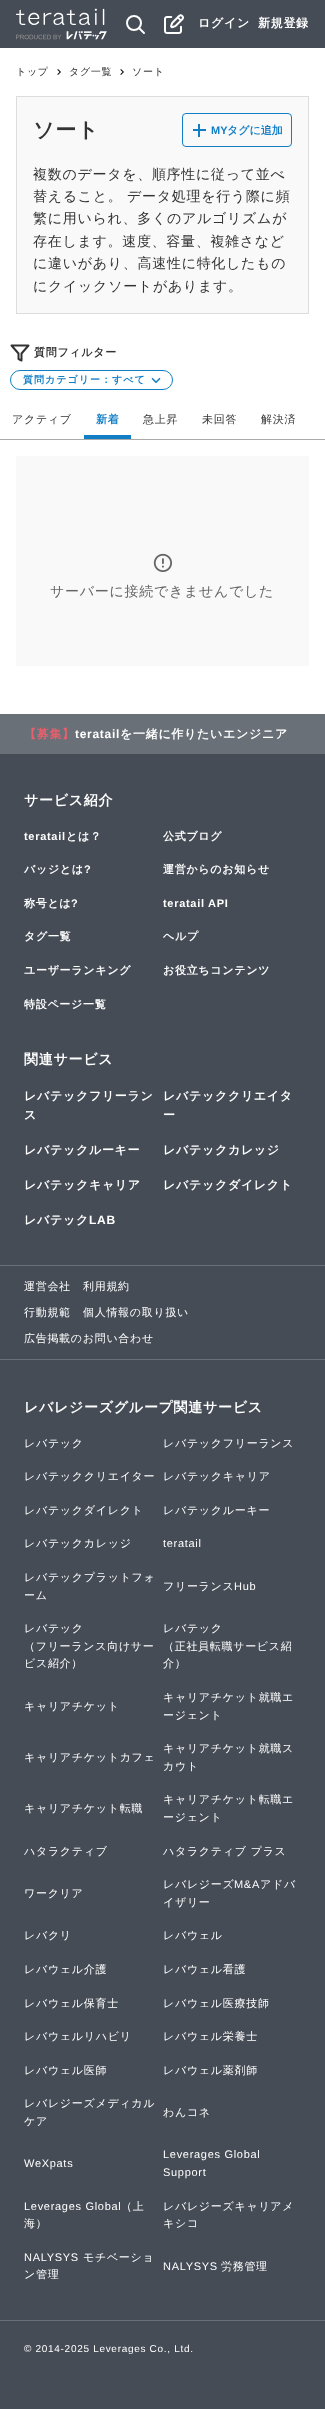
<svg xmlns="http://www.w3.org/2000/svg" width="325" height="2409" viewBox="0 0 325 2409">
  <rect width="100%" height="100%" fill="#ffffff"/>
  <rect x="0" y="0" width="325" height="48" fill="#464c56"/>
  <image x="16" y="8" width="91" height="32" href="img1.png"/>
  <circle cx="134" cy="23" r="7" fill="none" stroke="#ffffff" stroke-width="2"/>
  <path d="M144 33L139 28" fill="none" stroke="#ffffff" stroke-width="2" stroke-linecap="round"/>
  <image x="164" y="14" width="20" height="20" href="img2.png"/>
  <text x="198" y="27" font-family="WenQuanYi Zen Hei" font-size="12" font-weight="bold" letter-spacing="0.7" fill="#ffffff">ログイン</text>
  <text x="258" y="27" font-family="WenQuanYi Zen Hei" font-size="12" font-weight="bold" letter-spacing="0.7" fill="#ffffff">新規登録</text>
  <text x="16" y="75" font-family="WenQuanYi Zen Hei" font-size="10" font-weight="500" letter-spacing="0.7" fill="#333333">トップ</text>
  <image x="57" y="69" width="4" height="6" href="img3.png"/>
  <text x="69" y="75" font-family="WenQuanYi Zen Hei" font-size="10" font-weight="500" letter-spacing="0.7" fill="#333333">タグ一覧</text>
  <image x="120" y="69" width="4" height="6" href="img3.png"/>
  <text x="132" y="75" font-family="WenQuanYi Zen Hei" font-size="10" font-weight="500" letter-spacing="0.7" fill="#333333">ソート</text>
  <rect x="16.5" y="96.5" width="292" height="217" fill="#f9f9f9" stroke="#dddddd"/>
  <text x="33" y="137" font-family="WenQuanYi Zen Hei" font-size="21" font-weight="bold" letter-spacing="0.7" fill="#333333">ソート</text>
  <rect x="182.5" y="113.5" width="109" height="33" rx="3.5" fill="none" stroke="#117ec6"/>
  <rect x="198" y="124" width="2" height="13" fill="#117ec6"/>
  <rect x="193" y="129" width="13" height="2" fill="#117ec6"/>
  <text x="211" y="134" font-family="Liberation Sans" font-size="11" font-weight="bold" fill="#117ec6">MY</text>
  <text x="227" y="134" font-family="WenQuanYi Zen Hei" font-size="11" font-weight="bold" fill="#117ec6">タグに追加</text>
  <text x="33" y="179" font-family="WenQuanYi Zen Hei" font-size="14" font-weight="500" letter-spacing="0.7" fill="#333333">複数のデータを、順序性に従って並べ</text>
  <text x="33" y="201" font-family="WenQuanYi Zen Hei" font-size="14" font-weight="500" letter-spacing="0.7" fill="#333333">替えること。</text>
  <text x="127" y="201" font-family="WenQuanYi Zen Hei" font-size="14" font-weight="500" letter-spacing="0.7" fill="#333333">データ処理を行う際に頻</text>
  <text x="33" y="223" font-family="WenQuanYi Zen Hei" font-size="14" font-weight="500" letter-spacing="0.7" fill="#333333">繁に用いられ、多くのアルゴリズムが</text>
  <text x="33" y="246" font-family="WenQuanYi Zen Hei" font-size="14" font-weight="500" letter-spacing="0.7" fill="#333333">存在します。速度、容量、複雑さなど</text>
  <text x="33" y="268" font-family="WenQuanYi Zen Hei" font-size="14" font-weight="500" letter-spacing="0.7" fill="#333333">に違いがあり、高速性に特化したもの</text>
  <text x="33" y="291" font-family="WenQuanYi Zen Hei" font-size="14" font-weight="500" letter-spacing="0.7" fill="#333333">にクイックソートがあります。</text>
  <path d="M28.5 345.5H11.5L18.5 353.5V359L21.5 360.5V353.5Z" fill="none" stroke="#333333" stroke-width="2" stroke-linecap="round" stroke-linejoin="round"/>
  <text x="34" y="356" font-family="WenQuanYi Zen Hei" font-size="11" font-weight="bold" letter-spacing="0.7" fill="#333333">質問フィルター</text>
  <image x="151" y="377" width="10" height="7" href="img4.png"/>
  <rect x="10.5" y="370.5" width="162" height="19" rx="9.5" fill="none" stroke="#117ec6"/>
  <text x="23" y="383" font-family="WenQuanYi Zen Hei" font-size="10" font-weight="bold" letter-spacing="1" fill="#117ec6">質問カテゴリー：すべて</text>
  <rect x="0" y="439" width="325" height="1" fill="#aaaaaa"/>
  <text x="12" y="423" font-family="WenQuanYi Zen Hei" font-size="11" font-weight="500" letter-spacing="0.7" fill="#333333">アクティブ</text>
  <text x="96" y="423" font-family="WenQuanYi Zen Hei" font-size="11" font-weight="bold" letter-spacing="0.7" fill="#117ec6">新着</text>
  <rect x="84" y="435" width="47" height="4" fill="#117ec6"/>
  <text x="143" y="423" font-family="WenQuanYi Zen Hei" font-size="11" font-weight="500" letter-spacing="0.7" fill="#333333">急上昇</text>
  <text x="202" y="423" font-family="WenQuanYi Zen Hei" font-size="11" font-weight="500" letter-spacing="0.7" fill="#333333">未回答</text>
  <text x="261" y="423" font-family="WenQuanYi Zen Hei" font-size="11" font-weight="500" letter-spacing="0.7" fill="#333333">解決済</text>
  <rect x="16" y="456" width="293" height="210" fill="#f9f9f9"/>
  <image x="153" y="553" width="19" height="19" href="img5.png"/>
  <text x="50" y="596" font-family="WenQuanYi Zen Hei" font-size="14" font-weight="500" letter-spacing="0.7" fill="#666666">サーバーに接続できませんでした</text>
  <rect x="0" y="754" width="325" height="1655" fill="#464c56"/>
  <rect x="0" y="714" width="325" height="40" fill="#6a7077"/>
  <text x="24" y="738" font-family="WenQuanYi Zen Hei" font-size="12" font-weight="bold" letter-spacing="0.7" fill="#e9606d">【募集】</text>
  <text x="75" y="738" font-family="Liberation Sans" font-size="12" font-weight="bold" letter-spacing="0.7" fill="#ffffff">teratail</text>
  <text x="120" y="738" font-family="WenQuanYi Zen Hei" font-size="12" font-weight="bold" letter-spacing="0.7" fill="#ffffff">を一緒に作りたいエンジニア</text>
  <text x="24" y="805" font-family="WenQuanYi Zen Hei" font-size="14" font-weight="bold" letter-spacing="0.7" fill="#ffffff">サービス紹介</text>
  <text x="24" y="840" font-family="Liberation Sans" font-size="11" font-weight="bold" letter-spacing="0.7" fill="#ffffff">teratail</text>
  <text x="66" y="840" font-family="WenQuanYi Zen Hei" font-size="11" font-weight="bold" letter-spacing="0.7" fill="#ffffff">とは？</text>
  <text x="163" y="840" font-family="WenQuanYi Zen Hei" font-size="11" font-weight="bold" letter-spacing="0.7" fill="#ffffff">公式ブログ</text>
  <text x="24" y="873" font-family="WenQuanYi Zen Hei" font-size="11" font-weight="bold" letter-spacing="0.7" fill="#ffffff">バッジとは</text>
  <text x="84" y="873" font-family="Liberation Sans" font-size="11" font-weight="bold" letter-spacing="0.7" fill="#ffffff">?</text>
  <text x="163" y="873" font-family="WenQuanYi Zen Hei" font-size="11" font-weight="bold" letter-spacing="0.7" fill="#ffffff">運営からのお知らせ</text>
  <text x="24" y="907" font-family="WenQuanYi Zen Hei" font-size="11" font-weight="bold" letter-spacing="0.7" fill="#ffffff">称号とは</text>
  <text x="71" y="907" font-family="Liberation Sans" font-size="11" font-weight="bold" letter-spacing="0.7" fill="#ffffff">?</text>
  <text x="163" y="907" font-family="Liberation Sans" font-size="11" font-weight="bold" letter-spacing="0.7" fill="#ffffff">teratail API</text>
  <text x="24" y="940" font-family="WenQuanYi Zen Hei" font-size="11" font-weight="bold" letter-spacing="0.7" fill="#ffffff">タグ一覧</text>
  <text x="163" y="940" font-family="WenQuanYi Zen Hei" font-size="11" font-weight="bold" letter-spacing="0.7" fill="#ffffff">ヘルプ</text>
  <text x="24" y="974" font-family="WenQuanYi Zen Hei" font-size="11" font-weight="bold" letter-spacing="0.7" fill="#ffffff">ユーザーランキング</text>
  <text x="163" y="974" font-family="WenQuanYi Zen Hei" font-size="11" font-weight="bold" letter-spacing="0.7" fill="#ffffff">お役立ちコンテンツ</text>
  <text x="24" y="1008" font-family="WenQuanYi Zen Hei" font-size="11" font-weight="bold" letter-spacing="0.7" fill="#ffffff">特設ページ一覧</text>
  <text x="24" y="1064" font-family="WenQuanYi Zen Hei" font-size="14" font-weight="bold" letter-spacing="0.7" fill="#ffffff">関連サービス</text>
  <text x="24" y="1100" font-family="WenQuanYi Zen Hei" font-size="12" font-weight="bold" letter-spacing="0.7" fill="#ffffff">レバテックフリーラン</text>
  <text x="24" y="1119" font-family="WenQuanYi Zen Hei" font-size="12" font-weight="bold" letter-spacing="0.7" fill="#ffffff">ス</text>
  <text x="163" y="1100" font-family="WenQuanYi Zen Hei" font-size="12" font-weight="bold" letter-spacing="0.7" fill="#ffffff">レバテッククリエイタ</text>
  <text x="163" y="1119" font-family="WenQuanYi Zen Hei" font-size="12" font-weight="bold" letter-spacing="0.7" fill="#ffffff">ー</text>
  <text x="24" y="1154" font-family="WenQuanYi Zen Hei" font-size="12" font-weight="bold" letter-spacing="0.7" fill="#ffffff">レバテックルーキー</text>
  <text x="163" y="1154" font-family="WenQuanYi Zen Hei" font-size="12" font-weight="bold" letter-spacing="0.7" fill="#ffffff">レバテックカレッジ</text>
  <text x="24" y="1189" font-family="WenQuanYi Zen Hei" font-size="12" font-weight="bold" letter-spacing="0.7" fill="#ffffff">レバテックキャリア</text>
  <text x="163" y="1189" font-family="WenQuanYi Zen Hei" font-size="12" font-weight="bold" letter-spacing="0.7" fill="#ffffff">レバテックダイレクト</text>
  <text x="24" y="1224" font-family="WenQuanYi Zen Hei" font-size="12" font-weight="bold" letter-spacing="0.7" fill="#ffffff">レバテック</text>
  <text x="89" y="1224" font-family="Liberation Sans" font-size="12" font-weight="bold" letter-spacing="0.7" fill="#ffffff">LAB</text>
  <rect x="0" y="1265" width="325" height="1" fill="#6a7077"/>
  <text x="24" y="1290" font-family="WenQuanYi Zen Hei" font-size="11" font-weight="500" letter-spacing="0.7" fill="#ffffff">運営会社</text>
  <text x="83" y="1290" font-family="WenQuanYi Zen Hei" font-size="11" font-weight="500" letter-spacing="0.7" fill="#ffffff">利用規約</text>
  <text x="24" y="1316" font-family="WenQuanYi Zen Hei" font-size="11" font-weight="500" letter-spacing="0.7" fill="#ffffff">行動規範</text>
  <text x="83" y="1316" font-family="WenQuanYi Zen Hei" font-size="11" font-weight="500" letter-spacing="0.7" fill="#ffffff">個人情報の取り扱い</text>
  <text x="24" y="1342" font-family="WenQuanYi Zen Hei" font-size="11" font-weight="500" letter-spacing="0.7" fill="#ffffff">広告掲載のお問い合わせ</text>
  <rect x="0" y="1359" width="325" height="1" fill="#6a7077"/>
  <rect x="0" y="2320" width="325" height="1" fill="#6a7077"/>
  <text x="24" y="1412" font-family="WenQuanYi Zen Hei" font-size="14" font-weight="bold" letter-spacing="0.7" fill="#ffffff">レバレジーズグループ関連サービス</text>
  <text x="24" y="1447" font-family="WenQuanYi Zen Hei" font-size="11" font-weight="500" letter-spacing="0.7" fill="#ffffff">レバテック</text>
  <text x="163" y="1447" font-family="WenQuanYi Zen Hei" font-size="11" font-weight="500" letter-spacing="0.7" fill="#ffffff">レバテックフリーランス</text>
  <text x="24" y="1480" font-family="WenQuanYi Zen Hei" font-size="11" font-weight="500" letter-spacing="0.7" fill="#ffffff">レバテッククリエイター</text>
  <text x="163" y="1480" font-family="WenQuanYi Zen Hei" font-size="11" font-weight="500" letter-spacing="0.7" fill="#ffffff">レバテックキャリア</text>
  <text x="24" y="1514" font-family="WenQuanYi Zen Hei" font-size="11" font-weight="500" letter-spacing="0.7" fill="#ffffff">レバテックダイレクト</text>
  <text x="163" y="1514" font-family="WenQuanYi Zen Hei" font-size="11" font-weight="500" letter-spacing="0.7" fill="#ffffff">レバテックルーキー</text>
  <text x="24" y="1547" font-family="WenQuanYi Zen Hei" font-size="11" font-weight="500" letter-spacing="0.7" fill="#ffffff">レバテックカレッジ</text>
  <text x="163" y="1547" font-family="Liberation Sans" font-size="11" letter-spacing="0.7" fill="#ffffff">teratail</text>
  <text x="24" y="1581" font-family="WenQuanYi Zen Hei" font-size="11" font-weight="500" letter-spacing="0.7" fill="#ffffff">レバテックプラットフォ</text>
  <text x="24" y="1599" font-family="WenQuanYi Zen Hei" font-size="11" font-weight="500" letter-spacing="0.7" fill="#ffffff">ーム</text>
  <text x="163" y="1590" font-family="WenQuanYi Zen Hei" font-size="11" font-weight="500" letter-spacing="0.7" fill="#ffffff">フリーランス</text>
  <text x="234" y="1590" font-family="Liberation Sans" font-size="11" letter-spacing="0.7" fill="#ffffff">Hub</text>
  <text x="24" y="1632" font-family="WenQuanYi Zen Hei" font-size="11" font-weight="500" letter-spacing="0.7" fill="#ffffff">レバテック</text>
  <text x="24" y="1650" font-family="WenQuanYi Zen Hei" font-size="11" font-weight="500" letter-spacing="0.7" fill="#ffffff">（フリーランス向けサー</text>
  <text x="24" y="1667" font-family="WenQuanYi Zen Hei" font-size="11" font-weight="500" letter-spacing="0.7" fill="#ffffff">ビス紹介）</text>
  <text x="163" y="1632" font-family="WenQuanYi Zen Hei" font-size="11" font-weight="500" letter-spacing="0.7" fill="#ffffff">レバテック</text>
  <text x="163" y="1650" font-family="WenQuanYi Zen Hei" font-size="11" font-weight="500" letter-spacing="0.7" fill="#ffffff">（正社員転職サービス紹</text>
  <text x="163" y="1667" font-family="WenQuanYi Zen Hei" font-size="11" font-weight="500" letter-spacing="0.7" fill="#ffffff">介）</text>
  <text x="24" y="1710" font-family="WenQuanYi Zen Hei" font-size="11" font-weight="500" letter-spacing="0.7" fill="#ffffff">キャリアチケット</text>
  <text x="163" y="1701" font-family="WenQuanYi Zen Hei" font-size="11" font-weight="500" letter-spacing="0.7" fill="#ffffff">キャリアチケット就職エ</text>
  <text x="163" y="1719" font-family="WenQuanYi Zen Hei" font-size="11" font-weight="500" letter-spacing="0.7" fill="#ffffff">ージェント</text>
  <text x="24" y="1761" font-family="WenQuanYi Zen Hei" font-size="11" font-weight="500" letter-spacing="0.7" fill="#ffffff">キャリアチケットカフェ</text>
  <text x="163" y="1752" font-family="WenQuanYi Zen Hei" font-size="11" font-weight="500" letter-spacing="0.7" fill="#ffffff">キャリアチケット就職ス</text>
  <text x="163" y="1770" font-family="WenQuanYi Zen Hei" font-size="11" font-weight="500" letter-spacing="0.7" fill="#ffffff">カウト</text>
  <text x="24" y="1812" font-family="WenQuanYi Zen Hei" font-size="11" font-weight="500" letter-spacing="0.7" fill="#ffffff">キャリアチケット転職</text>
  <text x="163" y="1803" font-family="WenQuanYi Zen Hei" font-size="11" font-weight="500" letter-spacing="0.7" fill="#ffffff">キャリアチケット転職エ</text>
  <text x="163" y="1821" font-family="WenQuanYi Zen Hei" font-size="11" font-weight="500" letter-spacing="0.7" fill="#ffffff">ージェント</text>
  <text x="24" y="1855" font-family="WenQuanYi Zen Hei" font-size="11" font-weight="500" letter-spacing="0.7" fill="#ffffff">ハタラクティブ</text>
  <text x="163" y="1855" font-family="WenQuanYi Zen Hei" font-size="11" font-weight="500" letter-spacing="0.7" fill="#ffffff">ハタラクティブ プラス</text>
  <text x="24" y="1897" font-family="WenQuanYi Zen Hei" font-size="11" font-weight="500" letter-spacing="0.7" fill="#ffffff">ワークリア</text>
  <text x="163" y="1888" font-family="WenQuanYi Zen Hei" font-size="11" font-weight="500" letter-spacing="0.7" fill="#ffffff">レバレジーズ</text>
  <text x="234" y="1888" font-family="Liberation Sans" font-size="11" letter-spacing="0.7" fill="#ffffff">M&amp;A</text>
  <text x="260" y="1888" font-family="WenQuanYi Zen Hei" font-size="11" font-weight="500" letter-spacing="0.7" fill="#ffffff">アドバ</text>
  <text x="163" y="1906" font-family="WenQuanYi Zen Hei" font-size="11" font-weight="500" letter-spacing="0.7" fill="#ffffff">イザリー</text>
  <text x="24" y="1939" font-family="WenQuanYi Zen Hei" font-size="11" font-weight="500" letter-spacing="0.7" fill="#ffffff">レバクリ</text>
  <text x="163" y="1939" font-family="WenQuanYi Zen Hei" font-size="11" font-weight="500" letter-spacing="0.7" fill="#ffffff">レバウェル</text>
  <text x="24" y="1973" font-family="WenQuanYi Zen Hei" font-size="11" font-weight="500" letter-spacing="0.7" fill="#ffffff">レバウェル介護</text>
  <text x="163" y="1973" font-family="WenQuanYi Zen Hei" font-size="11" font-weight="500" letter-spacing="0.7" fill="#ffffff">レバウェル看護</text>
  <text x="24" y="2007" font-family="WenQuanYi Zen Hei" font-size="11" font-weight="500" letter-spacing="0.7" fill="#ffffff">レバウェル保育士</text>
  <text x="163" y="2007" font-family="WenQuanYi Zen Hei" font-size="11" font-weight="500" letter-spacing="0.7" fill="#ffffff">レバウェル医療技師</text>
  <text x="24" y="2040" font-family="WenQuanYi Zen Hei" font-size="11" font-weight="500" letter-spacing="0.7" fill="#ffffff">レバウェルリハビリ</text>
  <text x="163" y="2040" font-family="WenQuanYi Zen Hei" font-size="11" font-weight="500" letter-spacing="0.7" fill="#ffffff">レバウェル栄養士</text>
  <text x="24" y="2074" font-family="WenQuanYi Zen Hei" font-size="11" font-weight="500" letter-spacing="0.7" fill="#ffffff">レバウェル医師</text>
  <text x="163" y="2074" font-family="WenQuanYi Zen Hei" font-size="11" font-weight="500" letter-spacing="0.7" fill="#ffffff">レバウェル薬剤師</text>
  <text x="24" y="2107" font-family="WenQuanYi Zen Hei" font-size="11" font-weight="500" letter-spacing="0.7" fill="#ffffff">レバレジーズメディカル</text>
  <text x="24" y="2125" font-family="WenQuanYi Zen Hei" font-size="11" font-weight="500" letter-spacing="0.7" fill="#ffffff">ケア</text>
  <text x="163" y="2116" font-family="WenQuanYi Zen Hei" font-size="11" font-weight="500" letter-spacing="0.7" fill="#ffffff">わんコネ</text>
  <text x="24" y="2167" font-family="Liberation Sans" font-size="11" letter-spacing="0.7" fill="#ffffff">WeXpats</text>
  <text x="163" y="2158" font-family="Liberation Sans" font-size="11" letter-spacing="0.7" fill="#ffffff">Leverages Global</text>
  <text x="163" y="2176" font-family="Liberation Sans" font-size="11" letter-spacing="0.7" fill="#ffffff">Support</text>
  <text x="24" y="2210" font-family="Liberation Sans" font-size="11" letter-spacing="0.7" fill="#ffffff">Leverages Global</text>
  <text x="121" y="2210" font-family="WenQuanYi Zen Hei" font-size="11" font-weight="500" letter-spacing="0.7" fill="#ffffff">（上</text>
  <text x="24" y="2227" font-family="WenQuanYi Zen Hei" font-size="11" font-weight="500" letter-spacing="0.7" fill="#ffffff">海）</text>
  <text x="163" y="2210" font-family="WenQuanYi Zen Hei" font-size="11" font-weight="500" letter-spacing="0.7" fill="#ffffff">レバレジーズキャリアメ</text>
  <text x="163" y="2227" font-family="WenQuanYi Zen Hei" font-size="11" font-weight="500" letter-spacing="0.7" fill="#ffffff">キシコ</text>
  <text x="24" y="2261" font-family="Liberation Sans" font-size="11" letter-spacing="0.7" fill="#ffffff">NALYSYS</text>
  <text x="83" y="2261" font-family="WenQuanYi Zen Hei" font-size="11" font-weight="500" letter-spacing="0.7" fill="#ffffff">モチベーショ</text>
  <text x="24" y="2278" font-family="WenQuanYi Zen Hei" font-size="11" font-weight="500" letter-spacing="0.7" fill="#ffffff">ン管理</text>
  <text x="163" y="2270" font-family="Liberation Sans" font-size="11" letter-spacing="0.7" fill="#ffffff">NALYSYS</text>
  <text x="221" y="2270" font-family="WenQuanYi Zen Hei" font-size="11" font-weight="500" letter-spacing="0.7" fill="#ffffff">労務管理</text>
  <text x="24" y="2352" font-family="Liberation Sans" font-size="10" letter-spacing="0.7" fill="#ffffff">© 2014-2025 Leverages Co., Ltd.</text>
</svg>
